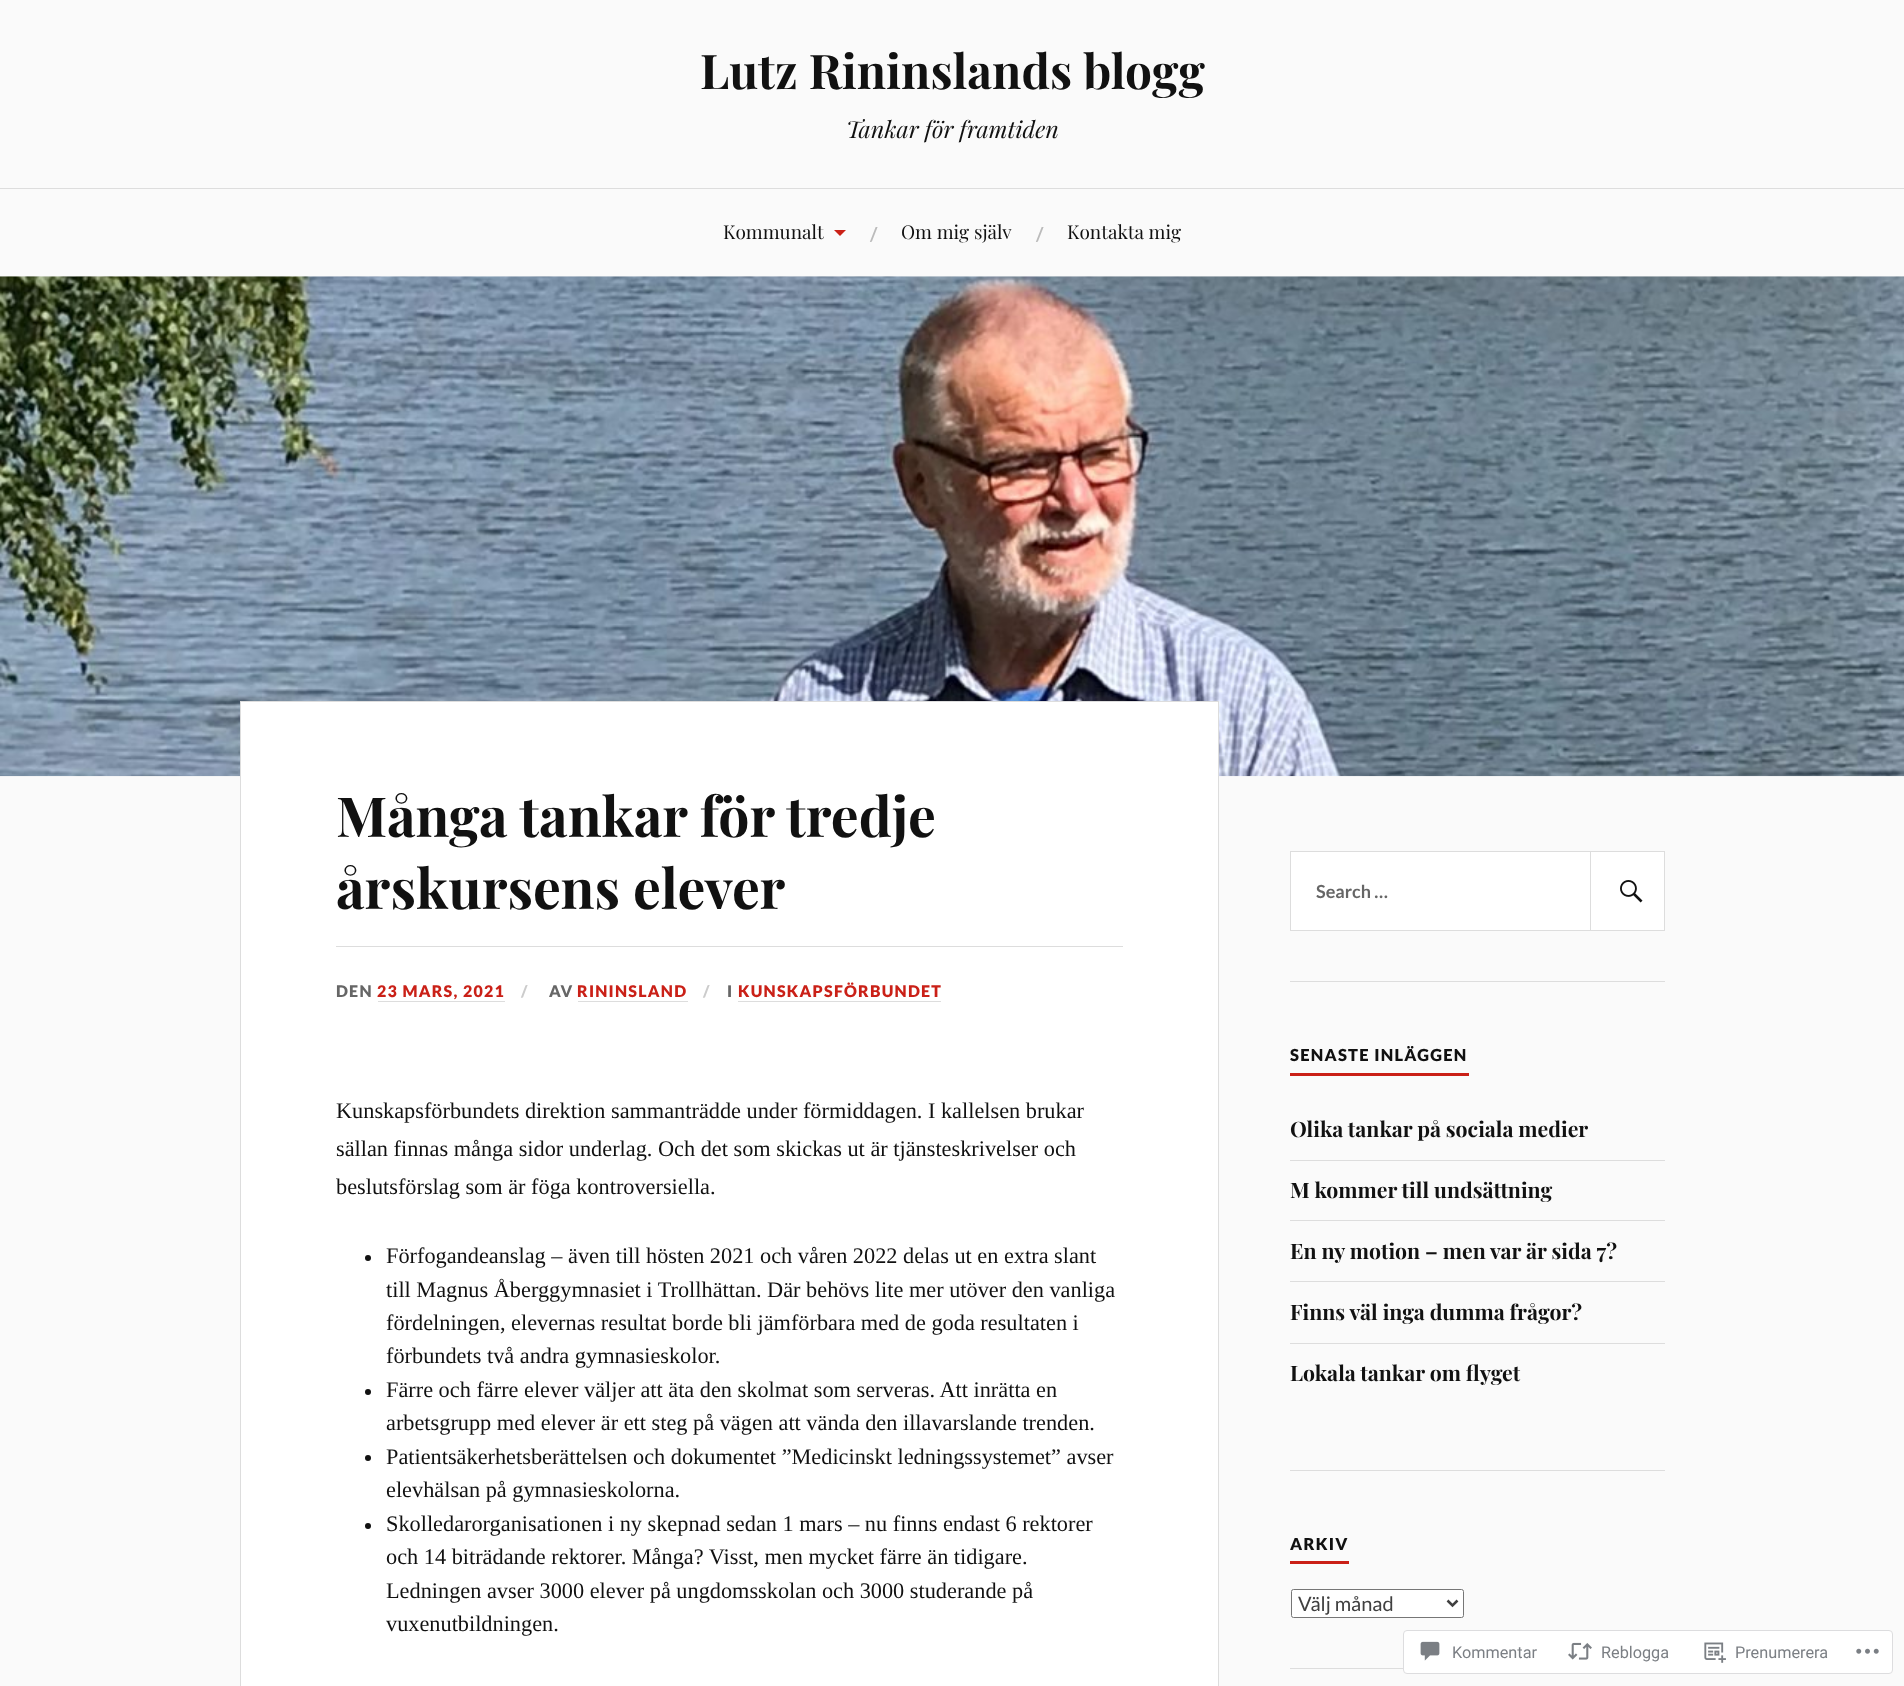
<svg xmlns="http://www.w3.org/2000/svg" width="1904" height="1686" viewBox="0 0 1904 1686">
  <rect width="100%" height="100%" fill="#fafafa"/>
  <text x="700" y="89" font-family="Playfair Display" font-size="47.75" font-weight="bold" fill="#111111">Lutz Rininslands blogg</text>
  <text x="846" y="138" font-family="Playfair Display" font-size="23.4" font-style="italic" fill="#111111">Tankar för framtiden</text>
  <rect x="0" y="188" width="1904" height="1" fill="#dddddd"/>
  <text x="723" y="239" font-family="Playfair Display" font-size="19" fill="#111111">Kommunalt</text>
  <path d="M834 230H846L840 236Z" fill="#ca2017"/>
  <text x="870" y="241" font-family="Lato" font-size="19" font-weight="bold" fill="#bbbbbb">/</text>
  <text x="901" y="239" font-family="Playfair Display" font-size="19" fill="#111111">Om mig själv</text>
  <text x="1036" y="241" font-family="Lato" font-size="19" font-weight="bold" fill="#bbbbbb">/</text>
  <text x="1067" y="239" font-family="Playfair Display" font-size="19" fill="#111111">Kontakta mig</text>
  <image x="0" y="276" width="1904" height="501" href="img1.png"/>
  <rect x="241" y="702" width="977" height="984" fill="#ffffff"/>
  <rect x="240" y="701" width="979" height="1" fill="#dddddd"/>
  <rect x="1218" y="701" width="1" height="985" fill="#dddddd"/>
  <rect x="240" y="701" width="1" height="985" fill="#dddddd"/>
  <text x="336" y="837" font-family="Playfair Display" font-size="55.25" font-weight="bold" fill="#111111">Många tankar för tredje</text>
  <text x="336" y="909" font-family="Playfair Display" font-size="55.25" font-weight="bold" fill="#111111">årskursens elever</text>
  <rect x="336" y="946" width="787" height="1" fill="#dddddd"/>
  <text x="336" y="997" font-family="Lato" font-size="16" font-weight="900" letter-spacing="1.25" fill="#666666">DEN</text>
  <text x="377" y="997" font-family="Lato" font-size="16" font-weight="900" letter-spacing="1.25" fill="#ca2017">23 MARS, 2021</text>
  <rect x="378" y="1001" width="127" height="1" fill="#dddddd"/>
  <text x="521" y="997" font-family="Lato" font-size="16" font-weight="900" letter-spacing="1.25" fill="#cccccc">/</text>
  <text x="549" y="997" font-family="Lato" font-size="16" font-weight="900" letter-spacing="1.25" fill="#666666">AV</text>
  <text x="577" y="997" font-family="Lato" font-size="16" font-weight="900" letter-spacing="1.25" fill="#ca2017">RININSLAND</text>
  <rect x="578" y="1001" width="110" height="1" fill="#dddddd"/>
  <text x="703" y="997" font-family="Lato" font-size="16" font-weight="900" letter-spacing="1.25" fill="#cccccc">/</text>
  <text x="727" y="997" font-family="Lato" font-size="16" font-weight="900" letter-spacing="1.25" fill="#666666">I</text>
  <text x="738" y="997" font-family="Lato" font-size="16" font-weight="900" letter-spacing="1.25" fill="#ca2017">KUNSKAPSFÖRBUNDET</text>
  <rect x="738" y="1001" width="203" height="1" fill="#dddddd"/>
  <text x="336" y="1118" font-family="Liberation Serif" font-size="22.3" fill="#111111">Kunskapsförbundets direktion sammanträdde under förmiddagen. I kallelsen brukar</text>
  <text x="336" y="1156" font-family="Liberation Serif" font-size="22.3" fill="#111111">sällan finnas många sidor underlag. Och det som skickas ut är tjänsteskrivelser och</text>
  <text x="336" y="1194" font-family="Liberation Serif" font-size="22.3" fill="#111111">beslutsförslag som är föga kontroversiella.</text>
  <circle cx="368" cy="1258" r="3" fill="#111111"/>
  <text x="386" y="1263" font-family="Liberation Serif" font-size="22.3" fill="#111111">Förfogandeanslag – även till hösten 2021 och våren 2022 delas ut en extra slant</text>
  <text x="386" y="1297" font-family="Liberation Serif" font-size="22.3" fill="#111111">till Magnus Åberggymnasiet i Trollhättan. Där behövs lite mer utöver den vanliga</text>
  <text x="386" y="1330" font-family="Liberation Serif" font-size="22.3" fill="#111111">fördelningen, elevernas resultat borde bli jämförbara med de goda resultaten i</text>
  <text x="386" y="1363" font-family="Liberation Serif" font-size="22.3" fill="#111111">förbundets två andra gymnasieskolor.</text>
  <circle cx="368" cy="1392" r="3" fill="#111111"/>
  <text x="386" y="1397" font-family="Liberation Serif" font-size="22.3" fill="#111111">Färre och färre elever väljer att äta den skolmat som serveras. Att inrätta en</text>
  <text x="386" y="1430" font-family="Liberation Serif" font-size="22.3" fill="#111111">arbetsgrupp med elever är ett steg på vägen att vända den illavarslande trenden.</text>
  <circle cx="368" cy="1458" r="3" fill="#111111"/>
  <text x="386" y="1464" font-family="Liberation Serif" font-size="22.3" fill="#111111">Patientsäkerhetsberättelsen och dokumentet ”Medicinskt ledningssystemet” avser</text>
  <text x="386" y="1497" font-family="Liberation Serif" font-size="22.3" fill="#111111">elevhälsan på gymnasieskolorna.</text>
  <circle cx="368" cy="1526" r="3" fill="#111111"/>
  <text x="386" y="1531" font-family="Liberation Serif" font-size="22.3" fill="#111111">Skolledarorganisationen i ny skepnad sedan 1 mars – nu finns endast 6 rektorer</text>
  <text x="386" y="1564" font-family="Liberation Serif" font-size="22.3" fill="#111111">och 14 biträdande rektorer. Många? Visst, men mycket färre än tidigare.</text>
  <text x="386" y="1598" font-family="Liberation Serif" font-size="22.3" fill="#111111">Ledningen avser 3000 elever på ungdomsskolan och 3000 studerande på</text>
  <text x="386" y="1631" font-family="Liberation Serif" font-size="22.3" fill="#111111">vuxenutbildningen.</text>
  <rect x="1290.5" y="851.5" width="374" height="79" fill="#ffffff" stroke="#dddddd"/>
  <text x="1316" y="898" font-family="Lato" font-size="18" font-weight="bold" fill="#666666">Search …</text>
  <rect x="1590.5" y="851.5" width="74" height="79" fill="none" stroke="#dddddd"/>
  <image x="1620" y="880" width="23" height="23" href="img2.png"/>
  <rect x="1290" y="981" width="375" height="1" fill="#dddddd"/>
  <rect x="1290" y="1073" width="179" height="3" fill="#ca2017"/>
  <text x="1290" y="1061" font-family="Lato" font-size="16.5" font-weight="900" letter-spacing="1.25" fill="#111111">SENASTE INLÄGGEN</text>
  <rect x="1290" y="1160" width="375" height="1" fill="#dddddd"/>
  <text x="1290" y="1137" font-family="Playfair Display" font-size="21.25" font-weight="bold" fill="#111111">Olika tankar på sociala medier</text>
  <rect x="1290" y="1220" width="375" height="1" fill="#dddddd"/>
  <text x="1290" y="1198" font-family="Playfair Display" font-size="21.25" font-weight="bold" fill="#111111">M kommer till undsättning</text>
  <rect x="1290" y="1281" width="375" height="1" fill="#dddddd"/>
  <text x="1290" y="1259" font-family="Playfair Display" font-size="21.25" font-weight="bold" fill="#111111">En ny motion – men var är sida 7?</text>
  <rect x="1290" y="1343" width="375" height="1" fill="#dddddd"/>
  <text x="1290" y="1320" font-family="Playfair Display" font-size="21.25" font-weight="bold" fill="#111111">Finns väl inga dumma frågor?</text>
  <text x="1290" y="1381" font-family="Playfair Display" font-size="21.25" font-weight="bold" fill="#111111">Lokala tankar om flyget</text>
  <rect x="1290" y="1470" width="375" height="1" fill="#dddddd"/>
  <rect x="1290" y="1561" width="59" height="3" fill="#ca2017"/>
  <text x="1290" y="1550" font-family="Lato" font-size="16.5" font-weight="900" letter-spacing="1.25" fill="#111111">ARKIV</text>
  <rect x="1291.5" y="1589.5" width="172" height="28" rx="2" fill="#ffffff" stroke="#767676"/>
  <path d="M1447.5 1600.5L1452.5 1605.5L1457.5 1600.5" fill="none" stroke="#404040" stroke-width="2.5"/>
  <text x="1298" y="1611" font-family="Lato" font-size="20" fill="#404040">Välj månad</text>
  <rect x="1290" y="1668" width="375" height="1" fill="#dddddd"/>
  <rect x="1403.5" y="1630.5" width="489" height="43" rx="3.5" fill="#ffffff" fill-opacity="0.98" stroke="#dddddf"/>
  <image x="1420" y="1641" width="20" height="20" href="img3.png"/>
  <text x="1452" y="1658" font-family="Roboto" font-size="16.25" fill="#7b7f84">Kommentar</text>
  <image x="1568" y="1642" width="24" height="18" href="img4.png"/>
  <text x="1601" y="1658" font-family="Roboto" font-size="16.25" fill="#7b7f84">Reblogga</text>
  <image x="1704" y="1642" width="22" height="21" href="img5.png"/>
  <text x="1735" y="1658" font-family="Roboto" font-size="16.25" fill="#7b7f84">Prenumerera</text>
  <image x="1856" y="1648" width="23" height="6" href="img6.png"/>
</svg>
